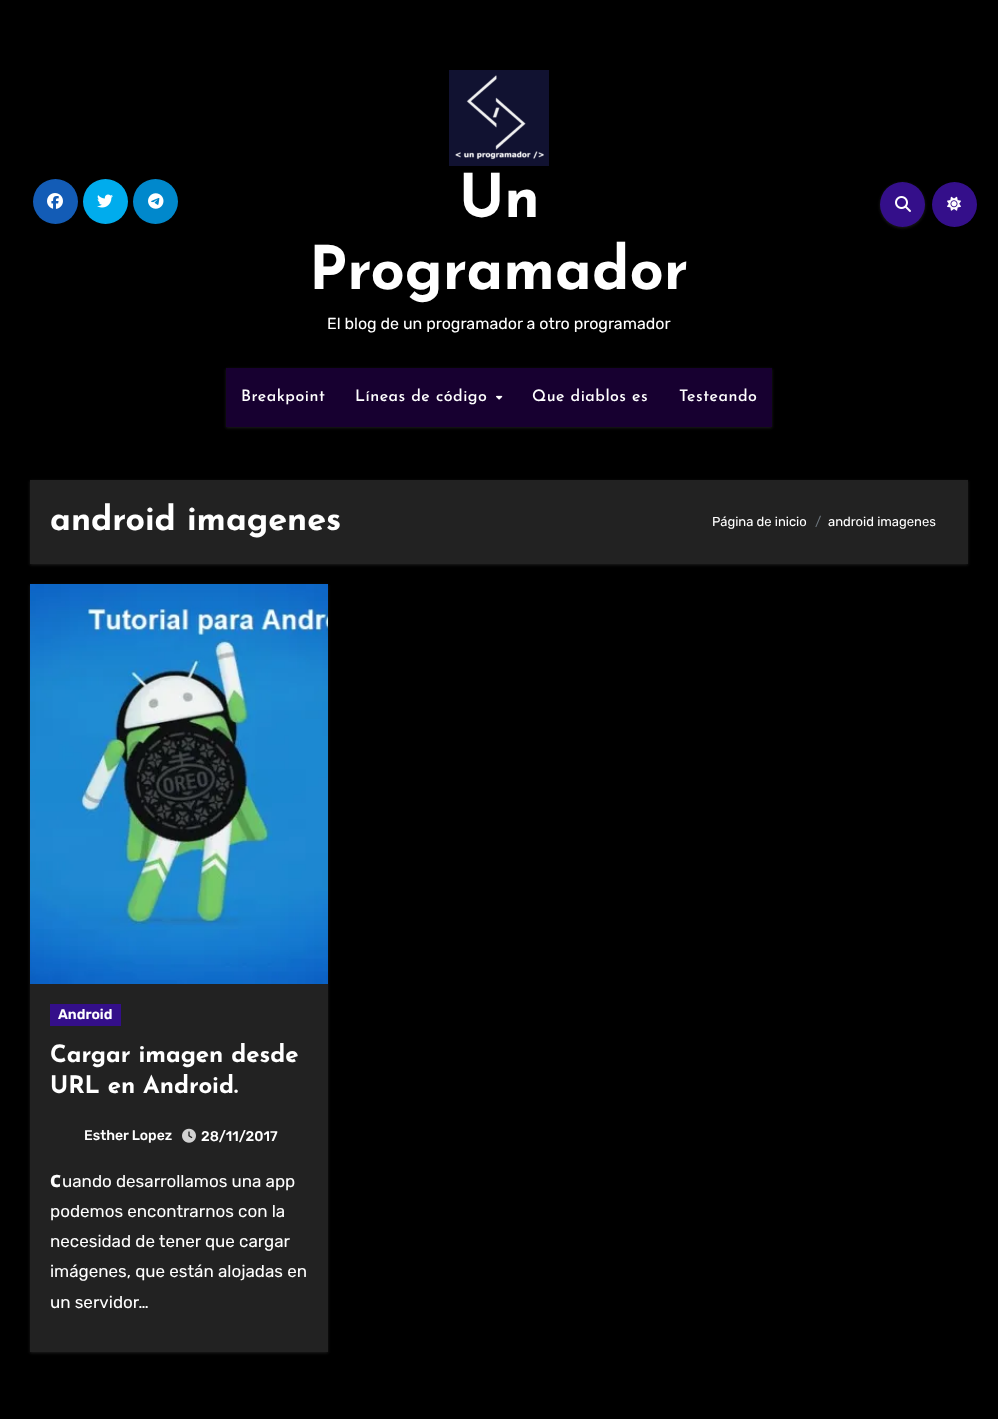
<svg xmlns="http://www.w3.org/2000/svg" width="998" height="1419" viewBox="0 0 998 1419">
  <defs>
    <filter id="blur1" x="-50%" y="-200%" width="200%" height="500%"><feGaussianBlur stdDeviation="1.5"/></filter>
  </defs>
  <rect width="100%" height="100%" fill="#000000"/>
  <circle cx="55.5" cy="201.5" r="22.5" fill="#135cb6"/>
  <image x="47" y="193" width="16" height="16" href="img1.png"/>
  <circle cx="105.5" cy="201.5" r="22.5" fill="#00aced"/>
  <image x="97" y="194" width="16" height="14" href="img2.png"/>
  <circle cx="155.5" cy="201.5" r="22.5" fill="#0088cc"/>
  <image x="148" y="193" width="16" height="16" href="img3.png"/>
  <image x="449" y="70" width="100" height="96" href="img4.png"/>
  <text x="459" y="217" font-family="Josefin Sans" font-size="60" font-weight="bold" fill="#ffffff">Un</text>
  <text x="309" y="289" font-family="Josefin Sans" font-size="60" font-weight="bold" fill="#ffffff">Programador</text>
  <text x="327" y="329" font-family="Rubik" font-size="16" fill="#ffffff">El blog de un programador a otro programador</text>
  <rect x="880" y="183" width="45" height="45" rx="22.5" fill="#b9b9b9" fill-opacity="0.15" filter="url(#blur1)"/>
  <circle cx="902.5" cy="204.5" r="22.5" fill="#340f8a"/>
  <image x="895" y="196" width="16" height="16" href="img5.png"/>
  <circle cx="954.5" cy="204.5" r="22.5" fill="#340f8a"/>
  <image x="947" y="196" width="14" height="15" href="img6.png"/>
  <rect x="226" y="369" width="546" height="59" fill="#b9b9b9" fill-opacity="0.15" filter="url(#blur1)"/>
  <rect x="226" y="368" width="546" height="59" fill="#170030"/>
  <text x="241" y="401" font-family="Josefin Sans" font-size="16" font-weight="500" letter-spacing="0.5" fill="#ffffff">Breakpoint</text>
  <text x="355" y="401" font-family="Josefin Sans" font-size="16" font-weight="500" letter-spacing="0.5" fill="#ffffff">Líneas de código</text>
  <image x="496" y="395" width="7" height="5" href="img7.png"/>
  <text x="532" y="401" font-family="Josefin Sans" font-size="16" font-weight="500" letter-spacing="0.5" fill="#ffffff">Que diablos es</text>
  <text x="679" y="401" font-family="Josefin Sans" font-size="16" font-weight="500" letter-spacing="0.5" fill="#ffffff">Testeando</text>
  <rect x="30" y="481" width="938" height="84" fill="#b9b9b9" fill-opacity="0.15" filter="url(#blur1)"/>
  <rect x="30" y="480" width="938" height="84" fill="#222222"/>
  <text x="50" y="530" font-family="Josefin Sans" font-size="34" font-weight="bold" fill="#ffffff">android imagenes</text>
  <text x="712" y="526" font-family="Rubik" font-size="13" fill="#ffffff">Página de inicio</text>
  <text x="815" y="526" font-family="Rubik" font-size="13" fill="#6c757d">/</text>
  <text x="828" y="526" font-family="Rubik" font-size="13" fill="#ffffff">android imagenes</text>
  <rect x="30" y="585" width="298" height="768" fill="#b9b9b9" fill-opacity="0.15" filter="url(#blur1)"/>
  <rect x="30" y="984" width="298" height="368" fill="#222222"/>
  <image x="30" y="584" width="298" height="400" href="img8.png"/>
  <rect x="50" y="1004" width="71" height="22" fill="#340f8a"/>
  <text x="58" y="1019" font-family="Rubik" font-size="14" font-weight="600" fill="#ffffff">Android</text>
  <text x="50" y="1062" font-family="Josefin Sans" font-size="24" font-weight="bold" fill="#ffffff">Cargar imagen desde</text>
  <text x="50" y="1093" font-family="Josefin Sans" font-size="24" font-weight="bold" fill="#ffffff">URL en Android.</text>
  <text x="84" y="1140" font-family="Rubik" font-size="14" font-weight="500" fill="#ffffff">Esther Lopez</text>
  <image x="182" y="1128" width="14" height="15" href="img9.png"/>
  <text x="201" y="1141" font-family="Rubik" font-size="14" font-weight="500" fill="#ffffff">28/11/2017</text>
  <text x="50" y="1187" font-family="Noto Sans" font-size="17" font-weight="900" fill="#ffffff">C</text>
  <text x="62" y="1187" font-family="Rubik" font-size="17" fill="#ffffff">uando desarrollamos una app</text>
  <text x="50" y="1217" font-family="Rubik" font-size="17" fill="#ffffff">podemos encontrarnos con la</text>
  <text x="50" y="1247" font-family="Rubik" font-size="17" fill="#ffffff">necesidad de tener que cargar</text>
  <text x="50" y="1277" font-family="Rubik" font-size="17" fill="#ffffff">imágenes, que están alojadas en</text>
  <text x="50" y="1308" font-family="Rubik" font-size="17" fill="#ffffff">un servidor…</text>
</svg>
